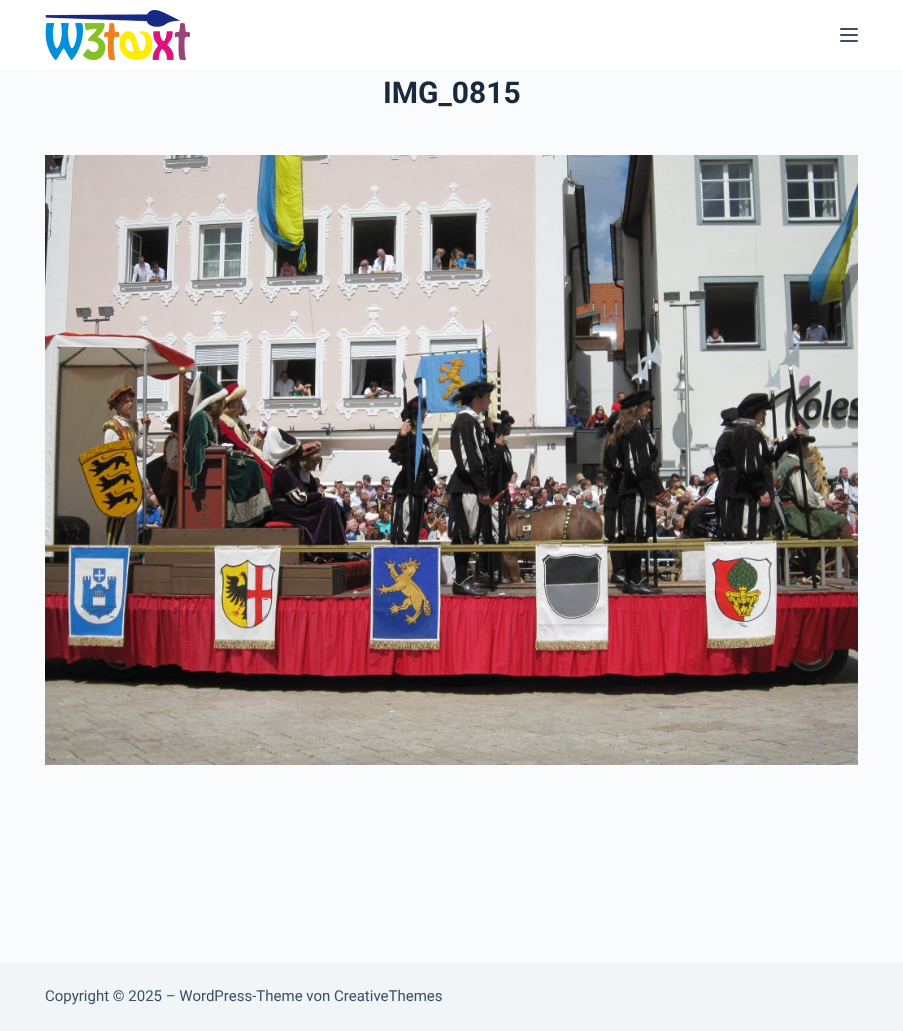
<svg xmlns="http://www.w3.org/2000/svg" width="903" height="1031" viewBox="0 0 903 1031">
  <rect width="100%" height="100%" fill="#fafbfc"/>
  <rect x="0" y="0" width="903" height="70" fill="#ffffff"/>
  <image x="45" y="10" width="145" height="50" href="img1.png"/>
  <rect x="840" y="28" width="18" height="2" rx="1" fill="#3a4f66"/>
  <rect x="840" y="34" width="18" height="2" rx="1" fill="#3a4f66"/>
  <rect x="840" y="40" width="18" height="2" rx="1" fill="#3a4f66"/>
  <text x="383" y="103" font-family="Roboto" font-size="30" font-weight="bold" fill="#192a3d">IMG_0815</text>
  <image x="45" y="155" width="813" height="610" href="img2.png"/>
  <rect x="0" y="962" width="903" height="69" fill="#f2f5f7"/>
  <text x="45" y="1001" font-family="Roboto" font-size="15" fill="#3a4f66">Copyright © 2025 – WordPress-Theme von CreativeThemes</text>
</svg>
